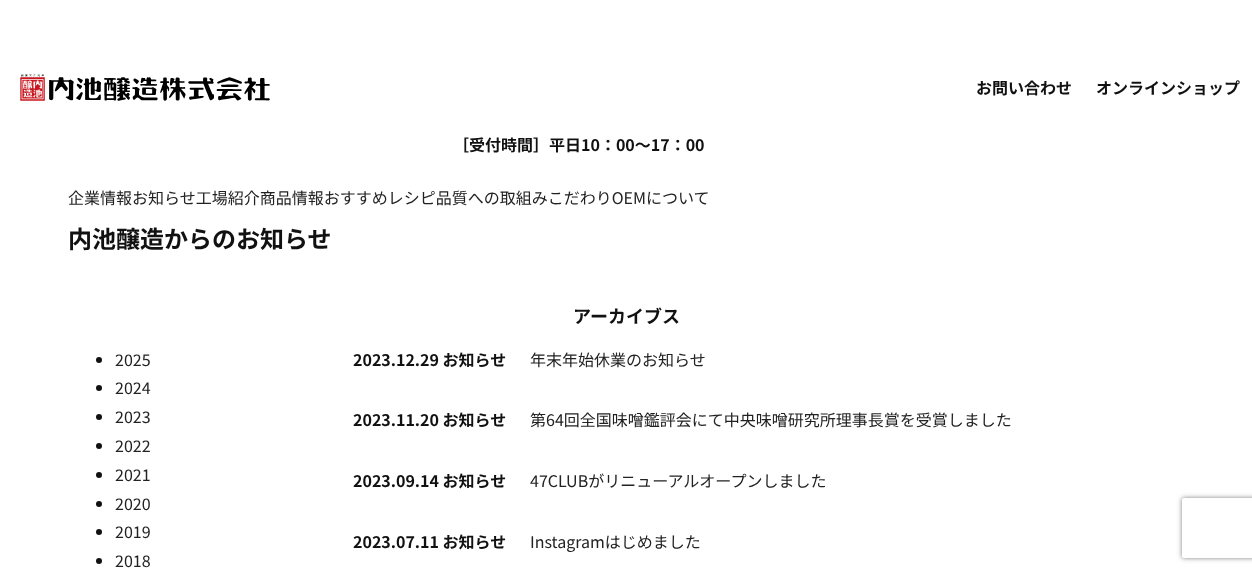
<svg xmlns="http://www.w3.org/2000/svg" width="1252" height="572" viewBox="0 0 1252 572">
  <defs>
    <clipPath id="clip1"><path d="M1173 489H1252V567H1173ZM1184 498H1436C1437 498 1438 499 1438 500V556C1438 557 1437 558 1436 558H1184C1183 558 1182 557 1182 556V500C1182 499 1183 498 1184 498Z" clip-rule="evenodd"/></clipPath>
    <filter id="blur1" x="-50%" y="-200%" width="200%" height="500%"><feGaussianBlur stdDeviation="2.5"/></filter>
  </defs>
  <rect width="100%" height="100%" fill="#ffffff"/>
  <image x="20" y="74" width="250" height="27" href="img1.png"/>
  <text x="976" y="94" font-family="Noto Sans JP" font-size="16" font-weight="bold" fill="#111111">お問い合わせ</text>
  <text x="1096" y="94" font-family="Noto Sans JP" font-size="16" font-weight="bold" fill="#111111">オンラインショップ</text>
  <text x="453" y="151" font-family="Noto Sans JP" font-size="16" font-weight="bold" fill="#111111">［受付時間］平日10：00～17：00</text>
  <text x="68" y="204" font-family="Noto Sans JP" font-size="16" fill="#222222">企業情報お知らせ工場紹介商品情報おすすめレシピ品質への取組みこだわりOEMについて</text>
  <text x="68" y="248" font-family="Noto Sans JP" font-size="24" font-weight="bold" fill="#111111">内池醸造からのお知らせ</text>
  <text x="573" y="323" font-family="Noto Sans JP" font-size="18" font-weight="bold" fill="#111111">アーカイブス</text>
  <circle cx="99" cy="360" r="3" fill="#111111"/>
  <text x="115" y="366" font-family="Noto Sans JP" font-size="16" fill="#222222">2025</text>
  <circle cx="99" cy="388" r="3" fill="#111111"/>
  <text x="115" y="394" font-family="Noto Sans JP" font-size="16" fill="#222222">2024</text>
  <circle cx="99" cy="417" r="3" fill="#111111"/>
  <text x="115" y="423" font-family="Noto Sans JP" font-size="16" fill="#222222">2023</text>
  <circle cx="99" cy="446" r="3" fill="#111111"/>
  <text x="115" y="452" font-family="Noto Sans JP" font-size="16" fill="#222222">2022</text>
  <circle cx="99" cy="475" r="3" fill="#111111"/>
  <text x="115" y="481" font-family="Noto Sans JP" font-size="16" fill="#222222">2021</text>
  <circle cx="99" cy="504" r="3" fill="#111111"/>
  <text x="115" y="510" font-family="Noto Sans JP" font-size="16" fill="#222222">2020</text>
  <circle cx="99" cy="532" r="3" fill="#111111"/>
  <text x="115" y="538" font-family="Noto Sans JP" font-size="16" fill="#222222">2019</text>
  <circle cx="99" cy="561" r="3" fill="#111111"/>
  <text x="115" y="567" font-family="Noto Sans JP" font-size="16" fill="#222222">2018</text>
  <text x="353" y="366" font-family="Noto Sans JP" font-size="16" font-weight="bold" fill="#111111">2023.12.29 お知らせ</text>
  <text x="530" y="366" font-family="Noto Sans JP" font-size="16" fill="#222222">年末年始休業のお知らせ</text>
  <text x="353" y="426" font-family="Noto Sans JP" font-size="16" font-weight="bold" fill="#111111">2023.11.20 お知らせ</text>
  <text x="530" y="426" font-family="Noto Sans JP" font-size="16" fill="#222222">第64回全国味噌鑑評会にて中央味噌研究所理事長賞を受賞しました</text>
  <text x="353" y="487" font-family="Noto Sans JP" font-size="16" font-weight="bold" fill="#111111">2023.09.14 お知らせ</text>
  <text x="530" y="487" font-family="Noto Sans JP" font-size="16" fill="#222222">47CLUBがリニューアルオープンしました</text>
  <text x="353" y="548" font-family="Noto Sans JP" font-size="16" font-weight="bold" fill="#111111">2023.07.11 お知らせ</text>
  <text x="530" y="548" font-family="Noto Sans JP" font-size="16" fill="#222222">Instagramはじめました</text>
  <g clip-path="url(#clip1)">
    <rect x="1182" y="498" width="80" height="60" rx="2" fill="#808080" filter="url(#blur1)"/>
  </g>
</svg>
